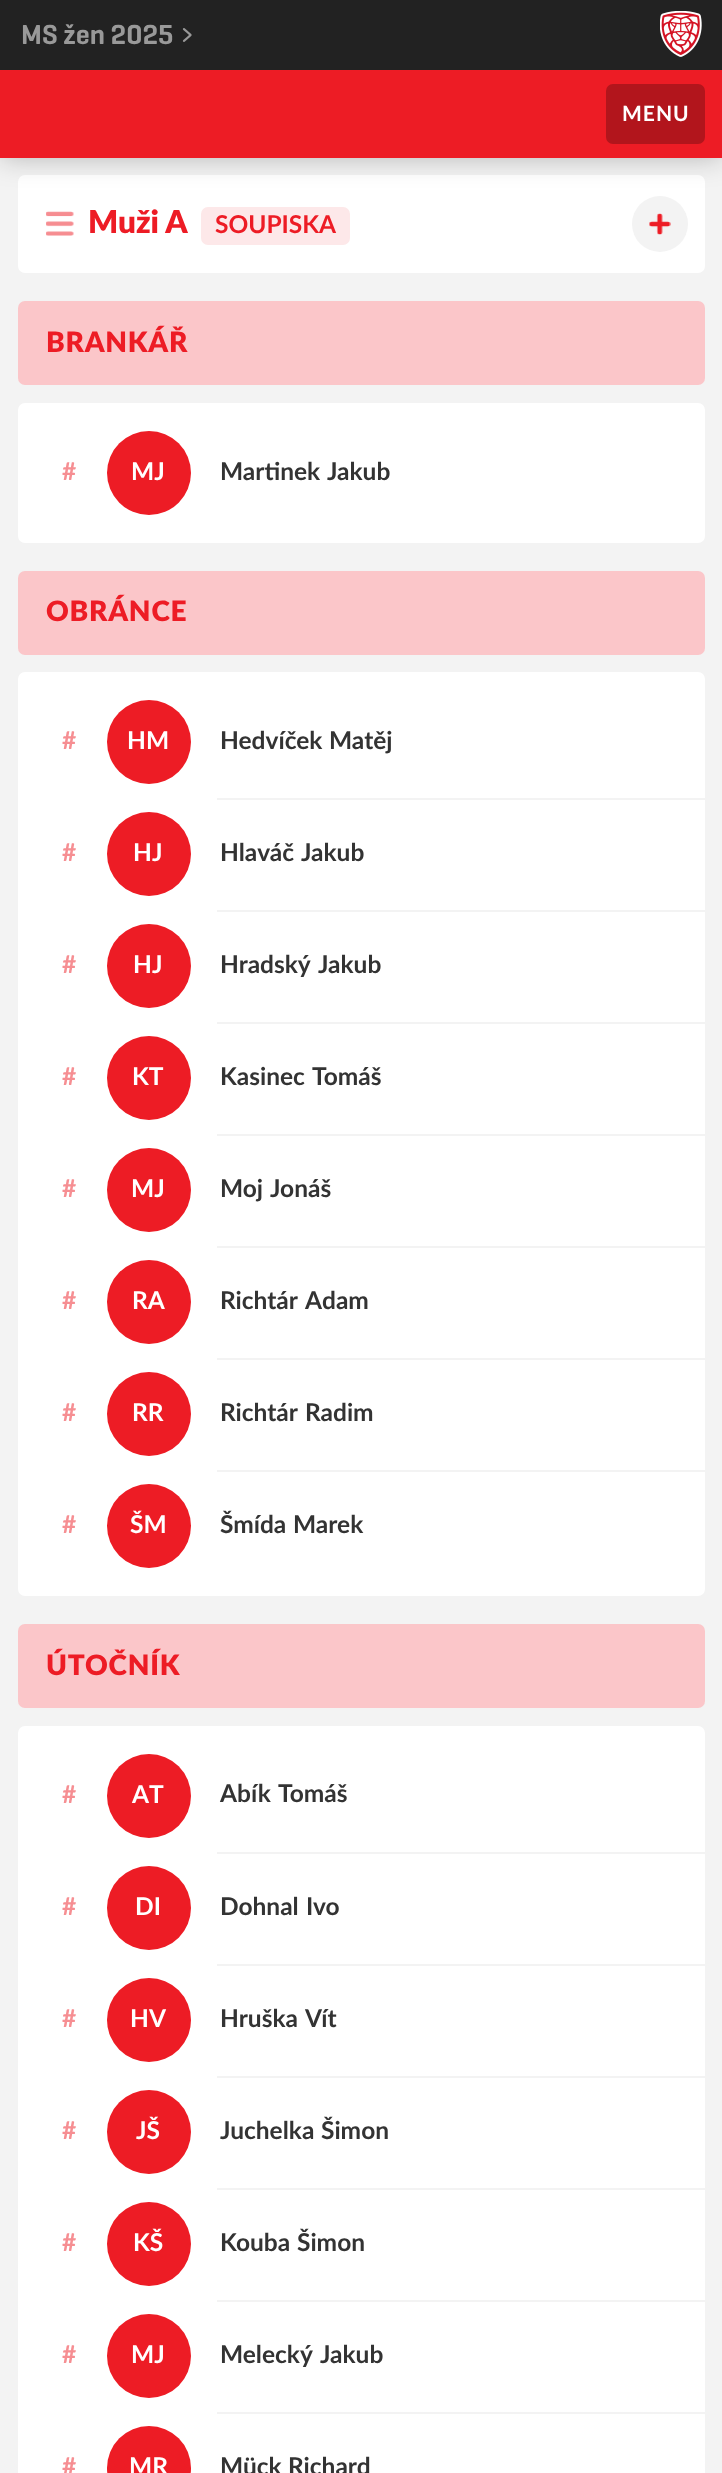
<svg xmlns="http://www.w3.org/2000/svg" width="722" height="2473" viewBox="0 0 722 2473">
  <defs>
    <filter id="blur1" x="-50%" y="-200%" width="200%" height="500%"><feGaussianBlur stdDeviation="14"/></filter>
  </defs>
  <rect width="100%" height="100%" fill="#f3f3f3"/>
  <rect x="18" y="175" width="687" height="98" rx="7" fill="#ffffff"/>
  <circle cx="660" cy="224" r="28" fill="#f3f3f3"/>
  <rect x="0" y="70" width="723" height="88" fill="#000000" fill-opacity="0.25" filter="url(#blur1)"/>
  <rect x="0" y="0" width="722" height="70" fill="#222222"/>
  <text x="21" y="44" font-family="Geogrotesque" font-size="28" font-weight="600" fill="#999999">MS žen 2025</text>
  <image x="182" y="28" width="10" height="14" href="img1.png"/>
  <image x="660" y="11" width="42" height="46" href="img2.png"/>
  <rect x="0" y="70" width="722" height="88" fill="#ed1c25"/>
  <rect x="606" y="84" width="99" height="60" rx="7" fill="#b2151c"/>
  <text x="622" y="121" font-family="Lato" font-size="21" font-weight="bold" letter-spacing="1" fill="#ffffff">MENU</text>
  <image x="46" y="211" width="28" height="25" href="img3.png"/>
  <text x="88" y="233" font-family="Lato" font-size="31.5" font-weight="900" fill="#ed1c25">Muži A</text>
  <rect x="201" y="207" width="149" height="38" rx="7" fill="#fde8e9"/>
  <text x="215" y="233" font-family="Lato" font-size="24.5" font-weight="bold" fill="#ed1c25">SOUPISKA</text>
  <image x="649" y="213" width="22" height="22" href="img4.png"/>
  <rect x="18" y="301" width="687" height="84" rx="7" fill="#fbc6c9"/>
  <text x="46" y="352" font-family="Lato" font-size="28" font-weight="900" letter-spacing="0.75" fill="#ed1c25">BRANKÁŘ</text>
  <rect x="18" y="403" width="687" height="140" rx="7" fill="#ffffff"/>
  <text x="62" y="480" font-family="Lato" font-size="24.5" font-weight="bold" fill="#f68e92">#</text>
  <circle cx="149" cy="473" r="42" fill="#ed1c25"/>
  <text x="131" y="480" font-family="Lato" font-size="24.5" font-weight="bold" fill="#ffffff">MJ</text>
  <text x="220" y="480" font-family="Lato" font-size="24.5" font-weight="bold" fill="#333333">Martinek</text>
  <text x="327" y="480" font-family="Lato" font-size="24.5" font-weight="bold" fill="#333333">Jakub</text>
  <rect x="18" y="571" width="687" height="84" rx="7" fill="#fbc6c9"/>
  <text x="46" y="621" font-family="Lato" font-size="28" font-weight="900" letter-spacing="0.75" fill="#ed1c25">OBRÁNCE</text>
  <rect x="18" y="672" width="687" height="924" rx="7" fill="#ffffff"/>
  <text x="62" y="749" font-family="Lato" font-size="24.5" font-weight="bold" fill="#f68e92">#</text>
  <circle cx="149" cy="742" r="42" fill="#ed1c25"/>
  <text x="127" y="749" font-family="Lato" font-size="24.5" font-weight="bold" fill="#ffffff">HM</text>
  <rect x="217" y="798" width="490" height="2" fill="#f3f3f3"/>
  <text x="220" y="749" font-family="Lato" font-size="24.5" font-weight="bold" fill="#333333">Hedvíček</text>
  <text x="329" y="749" font-family="Lato" font-size="24.5" font-weight="bold" fill="#333333">Matěj</text>
  <text x="62" y="861" font-family="Lato" font-size="24.5" font-weight="bold" fill="#f68e92">#</text>
  <circle cx="149" cy="854" r="42" fill="#ed1c25"/>
  <text x="133" y="861" font-family="Lato" font-size="24.5" font-weight="bold" fill="#ffffff">HJ</text>
  <rect x="217" y="910" width="490" height="2" fill="#f3f3f3"/>
  <text x="220" y="861" font-family="Lato" font-size="24.5" font-weight="bold" fill="#333333">Hlaváč</text>
  <text x="301" y="861" font-family="Lato" font-size="24.5" font-weight="bold" fill="#333333">Jakub</text>
  <text x="62" y="973" font-family="Lato" font-size="24.5" font-weight="bold" fill="#f68e92">#</text>
  <circle cx="149" cy="966" r="42" fill="#ed1c25"/>
  <text x="133" y="973" font-family="Lato" font-size="24.5" font-weight="bold" fill="#ffffff">HJ</text>
  <rect x="217" y="1022" width="490" height="2" fill="#f3f3f3"/>
  <text x="220" y="973" font-family="Lato" font-size="24.5" font-weight="bold" fill="#333333">Hradský</text>
  <text x="318" y="973" font-family="Lato" font-size="24.5" font-weight="bold" fill="#333333">Jakub</text>
  <text x="62" y="1085" font-family="Lato" font-size="24.5" font-weight="bold" fill="#f68e92">#</text>
  <circle cx="149" cy="1078" r="42" fill="#ed1c25"/>
  <text x="132" y="1085" font-family="Lato" font-size="24.5" font-weight="bold" fill="#ffffff">KT</text>
  <rect x="217" y="1134" width="490" height="2" fill="#f3f3f3"/>
  <text x="220" y="1085" font-family="Lato" font-size="24.5" font-weight="bold" fill="#333333">Kasinec</text>
  <text x="312" y="1085" font-family="Lato" font-size="24.5" font-weight="bold" fill="#333333">Tomáš</text>
  <text x="62" y="1197" font-family="Lato" font-size="24.5" font-weight="bold" fill="#f68e92">#</text>
  <circle cx="149" cy="1190" r="42" fill="#ed1c25"/>
  <text x="131" y="1197" font-family="Lato" font-size="24.5" font-weight="bold" fill="#ffffff">MJ</text>
  <rect x="217" y="1246" width="490" height="2" fill="#f3f3f3"/>
  <text x="220" y="1197" font-family="Lato" font-size="24.5" font-weight="bold" fill="#333333">Moj</text>
  <text x="270" y="1197" font-family="Lato" font-size="24.5" font-weight="bold" fill="#333333">Jonáš</text>
  <text x="62" y="1309" font-family="Lato" font-size="24.5" font-weight="bold" fill="#f68e92">#</text>
  <circle cx="149" cy="1302" r="42" fill="#ed1c25"/>
  <text x="132" y="1309" font-family="Lato" font-size="24.5" font-weight="bold" fill="#ffffff">RA</text>
  <rect x="217" y="1358" width="490" height="2" fill="#f3f3f3"/>
  <text x="220" y="1309" font-family="Lato" font-size="24.5" font-weight="bold" fill="#333333">Richtár</text>
  <text x="305" y="1309" font-family="Lato" font-size="24.5" font-weight="bold" fill="#333333">Adam</text>
  <text x="62" y="1421" font-family="Lato" font-size="24.5" font-weight="bold" fill="#f68e92">#</text>
  <circle cx="149" cy="1414" r="42" fill="#ed1c25"/>
  <text x="132" y="1421" font-family="Lato" font-size="24.5" font-weight="bold" fill="#ffffff">RR</text>
  <rect x="217" y="1470" width="490" height="2" fill="#f3f3f3"/>
  <text x="220" y="1421" font-family="Lato" font-size="24.5" font-weight="bold" fill="#333333">Richtár</text>
  <text x="305" y="1421" font-family="Lato" font-size="24.5" font-weight="bold" fill="#333333">Radim</text>
  <text x="62" y="1533" font-family="Lato" font-size="24.5" font-weight="bold" fill="#f68e92">#</text>
  <circle cx="149" cy="1526" r="42" fill="#ed1c25"/>
  <text x="130" y="1533" font-family="Lato" font-size="24.5" font-weight="bold" fill="#ffffff">ŠM</text>
  <text x="220" y="1533" font-family="Lato" font-size="24.5" font-weight="bold" fill="#333333">Šmída</text>
  <text x="293" y="1533" font-family="Lato" font-size="24.5" font-weight="bold" fill="#333333">Marek</text>
  <rect x="18" y="1624" width="687" height="84" rx="7" fill="#fbc6c9"/>
  <text x="46" y="1675" font-family="Lato" font-size="28" font-weight="900" letter-spacing="0.75" fill="#ed1c25">ÚTOČNÍK</text>
  <rect x="18" y="1726" width="687" height="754" rx="7" fill="#ffffff"/>
  <text x="62" y="1803" font-family="Lato" font-size="24.5" font-weight="bold" fill="#f68e92">#</text>
  <circle cx="149" cy="1796" r="42" fill="#ed1c25"/>
  <text x="132" y="1803" font-family="Lato" font-size="24.5" font-weight="bold" fill="#ffffff">AT</text>
  <rect x="217" y="1852" width="490" height="2" fill="#f3f3f3"/>
  <text x="220" y="1802" font-family="Lato" font-size="24.5" font-weight="bold" fill="#333333">Abík</text>
  <text x="278" y="1802" font-family="Lato" font-size="24.5" font-weight="bold" fill="#333333">Tomáš</text>
  <text x="62" y="1915" font-family="Lato" font-size="24.5" font-weight="bold" fill="#f68e92">#</text>
  <circle cx="149" cy="1908" r="42" fill="#ed1c25"/>
  <text x="135" y="1915" font-family="Lato" font-size="24.5" font-weight="bold" fill="#ffffff">DI</text>
  <rect x="217" y="1964" width="490" height="2" fill="#f3f3f3"/>
  <text x="220" y="1915" font-family="Lato" font-size="24.5" font-weight="bold" fill="#333333">Dohnal</text>
  <text x="306" y="1915" font-family="Lato" font-size="24.5" font-weight="bold" fill="#333333">Ivo</text>
  <text x="62" y="2027" font-family="Lato" font-size="24.5" font-weight="bold" fill="#f68e92">#</text>
  <circle cx="149" cy="2020" r="42" fill="#ed1c25"/>
  <text x="130" y="2027" font-family="Lato" font-size="24.5" font-weight="bold" fill="#ffffff">HV</text>
  <rect x="217" y="2076" width="490" height="2" fill="#f3f3f3"/>
  <text x="220" y="2027" font-family="Lato" font-size="24.5" font-weight="bold" fill="#333333">Hruška</text>
  <text x="305" y="2027" font-family="Lato" font-size="24.5" font-weight="bold" fill="#333333">Vít</text>
  <text x="62" y="2139" font-family="Lato" font-size="24.5" font-weight="bold" fill="#f68e92">#</text>
  <circle cx="149" cy="2132" r="42" fill="#ed1c25"/>
  <text x="136" y="2139" font-family="Lato" font-size="24.5" font-weight="bold" fill="#ffffff">JŠ</text>
  <rect x="217" y="2188" width="490" height="2" fill="#f3f3f3"/>
  <text x="220" y="2139" font-family="Lato" font-size="24.5" font-weight="bold" fill="#333333">Juchelka</text>
  <text x="321" y="2139" font-family="Lato" font-size="24.5" font-weight="bold" fill="#333333">Šimon</text>
  <text x="62" y="2251" font-family="Lato" font-size="24.5" font-weight="bold" fill="#f68e92">#</text>
  <circle cx="149" cy="2244" r="42" fill="#ed1c25"/>
  <text x="133" y="2251" font-family="Lato" font-size="24.5" font-weight="bold" fill="#ffffff">KŠ</text>
  <rect x="217" y="2300" width="490" height="2" fill="#f3f3f3"/>
  <text x="220" y="2251" font-family="Lato" font-size="24.5" font-weight="bold" fill="#333333">Kouba</text>
  <text x="297" y="2251" font-family="Lato" font-size="24.5" font-weight="bold" fill="#333333">Šimon</text>
  <text x="62" y="2363" font-family="Lato" font-size="24.5" font-weight="bold" fill="#f68e92">#</text>
  <circle cx="149" cy="2356" r="42" fill="#ed1c25"/>
  <text x="131" y="2363" font-family="Lato" font-size="24.5" font-weight="bold" fill="#ffffff">MJ</text>
  <rect x="217" y="2412" width="490" height="2" fill="#f3f3f3"/>
  <text x="220" y="2363" font-family="Lato" font-size="24.5" font-weight="bold" fill="#333333">Melecký</text>
  <text x="320" y="2363" font-family="Lato" font-size="24.5" font-weight="bold" fill="#333333">Jakub</text>
  <text x="62" y="2475" font-family="Lato" font-size="24.5" font-weight="bold" fill="#f68e92">#</text>
  <circle cx="149" cy="2468" r="42" fill="#ed1c25"/>
  <text x="129" y="2475" font-family="Lato" font-size="24.5" font-weight="bold" fill="#ffffff">MR</text>
  <text x="220" y="2475" font-family="Lato" font-size="24.5" font-weight="bold" fill="#333333">Mück</text>
  <text x="288" y="2475" font-family="Lato" font-size="24.5" font-weight="bold" fill="#333333">Richard</text>
</svg>
